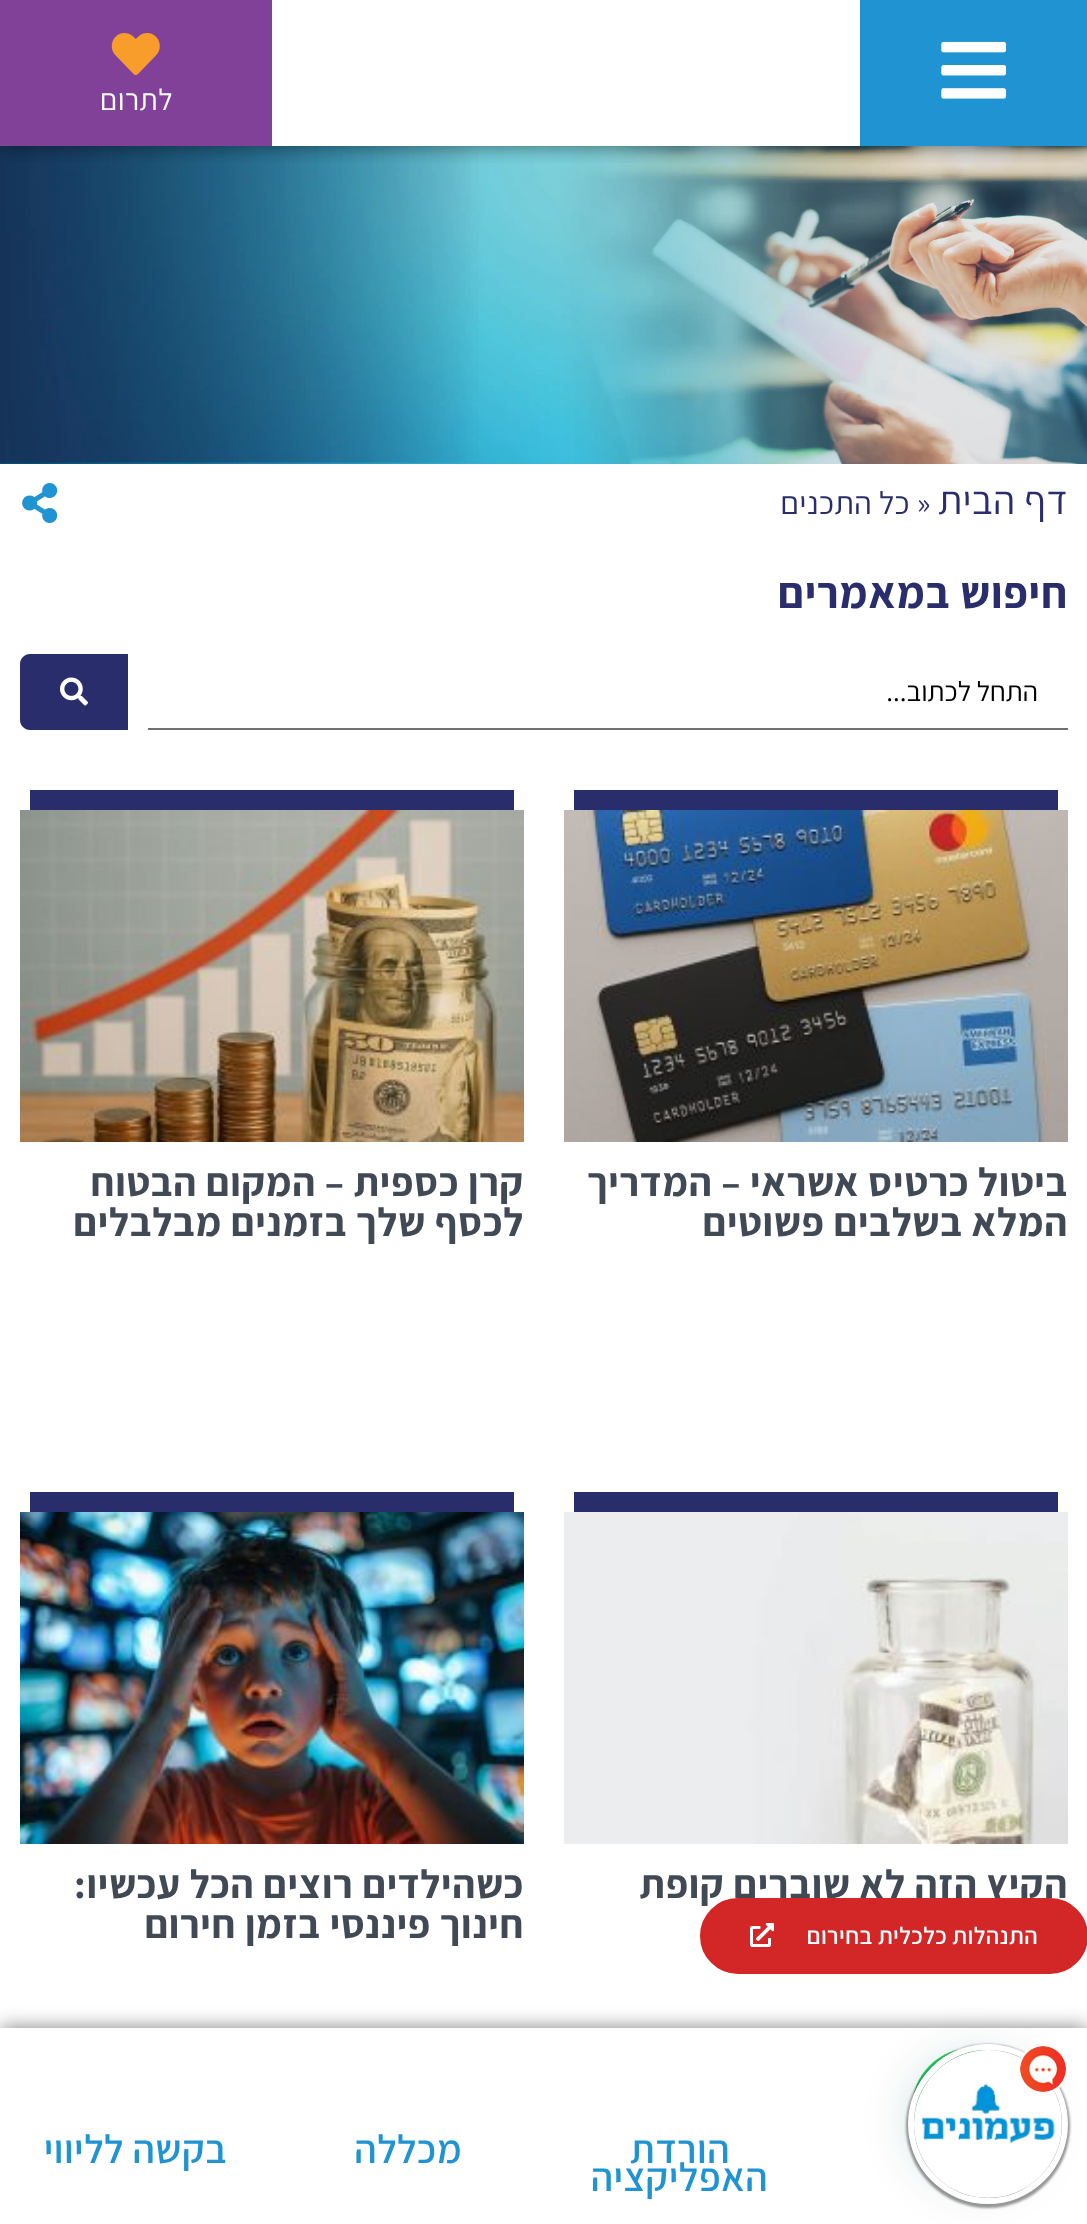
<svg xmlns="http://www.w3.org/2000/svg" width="1087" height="2224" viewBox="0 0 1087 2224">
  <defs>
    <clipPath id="clip1"><rect x="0" y="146" width="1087" height="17"/></clipPath>
    <filter id="blur1" x="-50%" y="-200%" width="200%" height="500%"><feGaussianBlur stdDeviation="10"/></filter>
    <filter id="blur2" x="-50%" y="-200%" width="200%" height="500%"><feGaussianBlur stdDeviation="24"/></filter>
    <filter id="blur3" x="-50%" y="-200%" width="200%" height="500%"><feGaussianBlur stdDeviation="1"/></filter>
  </defs>
  <rect width="100%" height="100%" fill="#ffffff"/>
  <image x="0" y="146" width="1087" height="318" href="img3.png"/>
  <g clip-path="url(#clip1)">
    <rect x="0" y="0" width="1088" height="146" fill="#000000" fill-opacity="0.5" filter="url(#blur1)"/>
  </g>
  <rect x="860" y="0" width="227" height="146" fill="#2093d2"/>
  <image x="941" y="41" width="66" height="58" href="img1.png"/>
  <rect x="0" y="0" width="272" height="146" fill="#824199"/>
  <image x="111" y="33" width="49" height="42" href="img2.png"/>
  <text x="173" y="110" font-family="Assistant" font-size="30" letter-spacing="0.5" direction="rtl" fill="#ffffff">לתרום</text>
  <text x="1068" y="514" font-family="Assistant" font-size="40" letter-spacing="0.4" direction="rtl" fill="#292d6b">דף הבית</text>
  <text x="917" y="514" font-family="Assistant" font-size="32" letter-spacing="0.4" fill="#292d6b">»</text>
  <text x="910" y="514" font-family="Assistant" font-size="32" letter-spacing="0.4" direction="rtl" fill="#292d6b">כל התכנים</text>
  <image x="22" y="483" width="36" height="40" href="img4.png"/>
  <text x="1068" y="608" font-family="Assistant" font-size="44" font-weight="bold" letter-spacing="0.9" direction="rtl" fill="#292d6b">חיפוש במאמרים</text>
  <rect x="148" y="728" width="920" height="2" fill="#707070"/>
  <text x="1038" y="701" font-family="Assistant" font-size="28" direction="rtl" fill="#000000">התחל לכתוב...</text>
  <path d="M30 654H128V730H30C24.5 730 20 725.5 20 720V664C20 658.5 24.5 654 30 654Z" fill="#292d6b"/>
  <image x="60" y="677" width="28" height="29" href="img5.png"/>
  <rect x="574" y="790" width="484" height="20" fill="#292d6b"/>
  <image x="564" y="810" width="504" height="332" href="img6.png"/>
  <text x="1068" y="1196" font-family="Assistant" font-size="40" font-weight="bold" letter-spacing="0.8" direction="rtl" fill="#414955">ביטול כרטיס אשראי – המדריך</text>
  <text x="1068" y="1236" font-family="Assistant" font-size="40" font-weight="bold" letter-spacing="0.8" direction="rtl" fill="#414955">המלא בשלבים פשוטים</text>
  <rect x="30" y="790" width="484" height="20" fill="#292d6b"/>
  <image x="20" y="810" width="504" height="332" href="img7.png"/>
  <text x="524" y="1196" font-family="Assistant" font-size="40" font-weight="bold" letter-spacing="0.8" direction="rtl" fill="#414955">קרן כספית – המקום הבטוח</text>
  <text x="524" y="1236" font-family="Assistant" font-size="40" font-weight="bold" letter-spacing="0.8" direction="rtl" fill="#414955">לכסף שלך בזמנים מבלבלים</text>
  <rect x="574" y="1492" width="484" height="20" fill="#292d6b"/>
  <image x="564" y="1512" width="504" height="332" href="img8.png"/>
  <text x="1068" y="1898" font-family="Assistant" font-size="40" font-weight="bold" letter-spacing="0.8" direction="rtl" fill="#414955">הקיץ הזה לא שוברים קופת</text>
  <rect x="30" y="1492" width="484" height="20" fill="#292d6b"/>
  <image x="20" y="1512" width="504" height="332" href="img9.png"/>
  <text x="524" y="1898" font-family="Assistant" font-size="40" font-weight="bold" letter-spacing="0.8" direction="rtl" fill="#414955">כשהילדים רוצים הכל עכשיו:</text>
  <text x="524" y="1938" font-family="Assistant" font-size="40" font-weight="bold" letter-spacing="0.8" direction="rtl" fill="#414955">חינוך פיננסי בזמן חירום</text>
  <rect x="701" y="1899" width="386" height="74" rx="37" fill="#d32627" stroke="#d32627" stroke-width="2"/>
  <text x="1038" y="1944" font-family="Assistant" font-size="24" font-weight="600" letter-spacing="0.4" direction="rtl" fill="#ffffff">התנהלות כלכלית בחירום</text>
  <image x="750" y="1923" width="24" height="24" href="img10.png"/>
  <rect x="0" y="2028" width="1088" height="196" fill="#000000" fill-opacity="0.5" filter="url(#blur1)"/>
  <rect x="0" y="2028" width="1087" height="196" fill="#ffffff"/>
  <text x="730" y="2163" font-family="Assistant" font-size="40" font-weight="600" letter-spacing="0.5" direction="rtl" fill="#2093d2">הורדת</text>
  <text x="768" y="2191" font-family="Assistant" font-size="40" font-weight="600" letter-spacing="0.5" direction="rtl" fill="#2093d2">האפליקציה</text>
  <text x="462" y="2163" font-family="Assistant" font-size="40" font-weight="600" letter-spacing="0.5" direction="rtl" fill="#2093d2">מכללה</text>
  <text x="227" y="2163" font-family="Assistant" font-size="40" font-weight="600" letter-spacing="0.5" direction="rtl" fill="#2093d2">בקשה לליווי</text>
  <rect x="914" y="2060" width="120" height="120" rx="60" fill="#075e54" fill-opacity="0.24" filter="url(#blur2)"/>
  <circle cx="972" cy="2108" r="60" fill="#25d366"/>
  <rect x="906" y="2044" width="164" height="164" rx="82" fill="#000000" fill-opacity="0.4" filter="url(#blur3)"/>
  <circle cx="988" cy="2124" r="77" fill="none" stroke="#ffffff" stroke-width="6"/>
  <image x="914" y="2050" width="148" height="148" href="img11.png"/>
  <circle cx="1043" cy="2069" r="24" fill="#ffffff" stroke="#ffffff" stroke-width="2"/>
  <image x="1020" y="2046" width="46" height="46" href="img12.png"/>
</svg>
